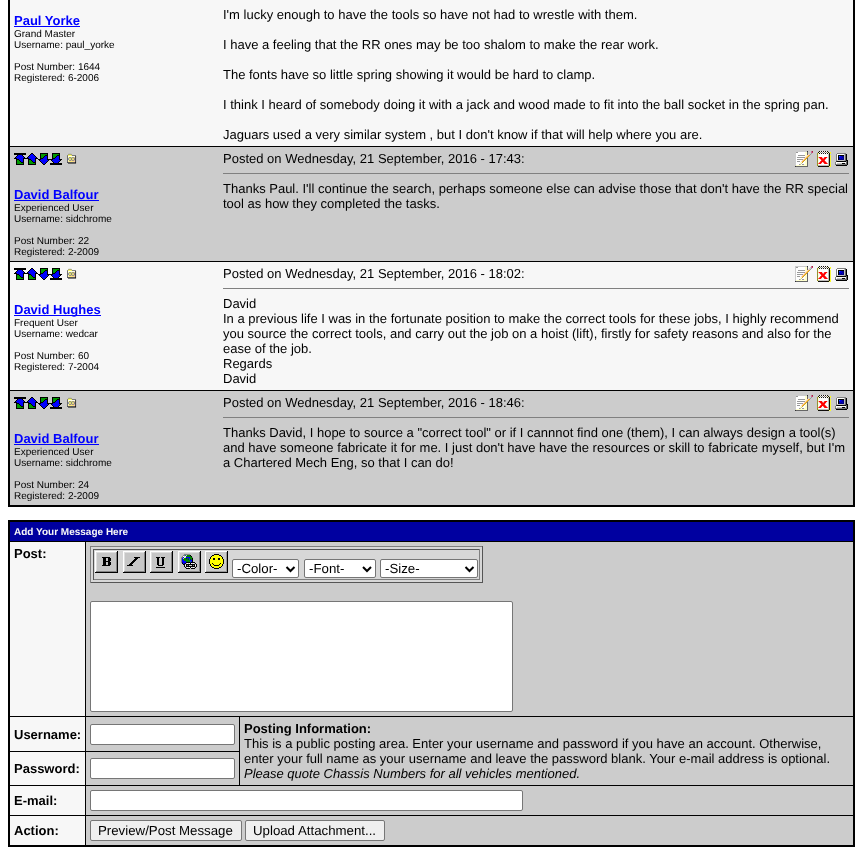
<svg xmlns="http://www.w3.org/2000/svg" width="863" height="860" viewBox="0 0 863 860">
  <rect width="100%" height="100%" fill="#ffffff"/>
  <rect x="8" y="0" width="847" height="507" fill="#000000"/>
  <rect x="10" y="0" width="843" height="146" fill="#f7f7f7"/>
  <text x="14" y="25" font-family="Liberation Sans" font-size="13" font-weight="bold" fill="#0000ff">Paul Yorke</text>
  <rect x="14" y="26" width="66" height="1" fill="#0000ff"/>
  <text x="14" y="37" font-family="Liberation Sans" font-size="10" fill="#000000">Grand Master</text>
  <text x="14" y="48" font-family="Liberation Sans" font-size="10" fill="#000000">Username: paul_yorke</text>
  <text x="14" y="70" font-family="Liberation Sans" font-size="10" fill="#000000">Post Number: 1644</text>
  <text x="14" y="81" font-family="Liberation Sans" font-size="10" fill="#000000">Registered: 6-2006</text>
  <text x="223" y="19" font-family="Liberation Sans" font-size="13" fill="#000000">I'm lucky enough to have the tools so have not had to wrestle with them.</text>
  <text x="223" y="49" font-family="Liberation Sans" font-size="13" fill="#000000">I have a feeling that the RR ones may be too shalom to make the rear work.</text>
  <text x="223" y="79" font-family="Liberation Sans" font-size="13" fill="#000000">The fonts have so little spring showing it would be hard to clamp.</text>
  <text x="223" y="109" font-family="Liberation Sans" font-size="13" fill="#000000">I think I heard of somebody doing it with a jack and wood made to fit into the ball socket in the spring pan.</text>
  <text x="223" y="139" font-family="Liberation Sans" font-size="13" fill="#000000">Jaguars used a very similar system , but I don't know if that will help where you are.</text>
  <rect x="10" y="147" width="843" height="114" fill="#cccccc"/>
  <text x="223" y="163" font-family="Liberation Sans" font-size="13" fill="#000000">Posted on Wednesday, 21 September, 2016 - 17:43:</text>
  <image x="795" y="151" width="18" height="16" href="img1.png"/>
  <image x="817" y="151" width="14" height="16" href="img2.png"/>
  <image x="835" y="153" width="13" height="13" href="img3.png"/>
  <rect x="223" y="173" width="626" height="1" fill="#808080"/>
  <text x="223" y="193" font-family="Liberation Sans" font-size="13" fill="#000000">Thanks Paul. I'll continue the search, perhaps someone else can advise those that don't have the RR special</text>
  <text x="223" y="208" font-family="Liberation Sans" font-size="13" fill="#000000">tool as how they completed the tasks.</text>
  <image x="14" y="153" width="12" height="12" href="img4.png"/>
  <image x="26" y="153" width="12" height="12" href="img5.png"/>
  <image x="38" y="153" width="12" height="12" href="img6.png"/>
  <image x="50" y="153" width="12" height="12" href="img7.png"/>
  <image x="67" y="153" width="10" height="11" href="img8.png"/>
  <text x="14" y="199" font-family="Liberation Sans" font-size="13" font-weight="bold" fill="#0000ff">David Balfour</text>
  <rect x="14" y="200" width="85" height="1" fill="#0000ff"/>
  <text x="14" y="211" font-family="Liberation Sans" font-size="10" fill="#000000">Experienced User</text>
  <text x="14" y="222" font-family="Liberation Sans" font-size="10" fill="#000000">Username: sidchrome</text>
  <text x="14" y="244" font-family="Liberation Sans" font-size="10" fill="#000000">Post Number: 22</text>
  <text x="14" y="255" font-family="Liberation Sans" font-size="10" fill="#000000">Registered: 2-2009</text>
  <rect x="10" y="262" width="843" height="128" fill="#f7f7f7"/>
  <image x="14" y="268" width="12" height="12" href="img9.png"/>
  <image x="26" y="268" width="12" height="12" href="img10.png"/>
  <image x="38" y="268" width="12" height="12" href="img11.png"/>
  <image x="50" y="268" width="12" height="12" href="img12.png"/>
  <image x="67" y="268" width="10" height="11" href="img13.png"/>
  <rect x="14" y="315" width="87" height="1" fill="#0000ff"/>
  <text x="14" y="314" font-family="Liberation Sans" font-size="13" font-weight="bold" fill="#0000ff">David Hughes</text>
  <text x="14" y="326" font-family="Liberation Sans" font-size="10" fill="#000000">Frequent User</text>
  <text x="14" y="337" font-family="Liberation Sans" font-size="10" fill="#000000">Username: wedcar</text>
  <text x="14" y="359" font-family="Liberation Sans" font-size="10" fill="#000000">Post Number: 60</text>
  <text x="14" y="370" font-family="Liberation Sans" font-size="10" fill="#000000">Registered: 7-2004</text>
  <text x="223" y="278" font-family="Liberation Sans" font-size="13" fill="#000000">Posted on Wednesday, 21 September, 2016 - 18:02:</text>
  <image x="795" y="266" width="18" height="16" href="img14.png"/>
  <image x="817" y="266" width="14" height="16" href="img15.png"/>
  <image x="835" y="268" width="13" height="13" href="img16.png"/>
  <rect x="223" y="288" width="626" height="1" fill="#808080"/>
  <text x="223" y="308" font-family="Liberation Sans" font-size="13" fill="#000000">David</text>
  <text x="223" y="323" font-family="Liberation Sans" font-size="13" fill="#000000">In a previous life I was in the fortunate position to make the correct tools for these jobs, I highly recommend</text>
  <text x="223" y="338" font-family="Liberation Sans" font-size="13" fill="#000000">you source the correct tools, and carry out the job on a hoist (lift), firstly for safety reasons and also for the</text>
  <text x="223" y="353" font-family="Liberation Sans" font-size="13" fill="#000000">ease of the job.</text>
  <text x="223" y="368" font-family="Liberation Sans" font-size="13" fill="#000000">Regards</text>
  <text x="223" y="383" font-family="Liberation Sans" font-size="13" fill="#000000">David</text>
  <rect x="10" y="391" width="843" height="114" fill="#cccccc"/>
  <image x="14" y="397" width="12" height="12" href="img4.png"/>
  <image x="26" y="397" width="12" height="12" href="img5.png"/>
  <image x="38" y="397" width="12" height="12" href="img6.png"/>
  <image x="50" y="397" width="12" height="12" href="img7.png"/>
  <image x="67" y="397" width="10" height="11" href="img8.png"/>
  <text x="14" y="443" font-family="Liberation Sans" font-size="13" font-weight="bold" fill="#0000ff">David Balfour</text>
  <rect x="14" y="444" width="85" height="1" fill="#0000ff"/>
  <text x="14" y="455" font-family="Liberation Sans" font-size="10" fill="#000000">Experienced User</text>
  <text x="14" y="466" font-family="Liberation Sans" font-size="10" fill="#000000">Username: sidchrome</text>
  <text x="14" y="488" font-family="Liberation Sans" font-size="10" fill="#000000">Post Number: 24</text>
  <text x="14" y="499" font-family="Liberation Sans" font-size="10" fill="#000000">Registered: 2-2009</text>
  <text x="223" y="407" font-family="Liberation Sans" font-size="13" fill="#000000">Posted on Wednesday, 21 September, 2016 - 18:46:</text>
  <image x="795" y="395" width="18" height="16" href="img1.png"/>
  <image x="817" y="395" width="14" height="16" href="img2.png"/>
  <image x="835" y="397" width="13" height="13" href="img3.png"/>
  <rect x="223" y="417" width="626" height="1" fill="#808080"/>
  <text x="223" y="437" font-family="Liberation Sans" font-size="13" fill="#000000">Thanks David, I hope to source a "correct tool" or if I cannnot find one (them), I can always design a tool(s)</text>
  <text x="223" y="452" font-family="Liberation Sans" font-size="13" fill="#000000">and have someone fabricate it for me. I just don't have have the resources or skill to fabricate myself, but I'm</text>
  <text x="223" y="467" font-family="Liberation Sans" font-size="13" fill="#000000">a Chartered Mech Eng, so that I can do!</text>
  <rect x="8" y="520" width="847" height="327" fill="#000000"/>
  <rect x="10" y="522" width="843" height="19" fill="#0000a0"/>
  <text x="14" y="535" font-family="Liberation Sans" font-size="10" font-weight="bold" fill="#f7f7f7">Add Your Message Here</text>
  <rect x="10" y="542" width="75" height="174" fill="#f7f7f7"/>
  <text x="14" y="558" font-family="Liberation Sans" font-size="13" font-weight="bold" fill="#000000">Post:</text>
  <rect x="86" y="542" width="767" height="174" fill="#cccccc"/>
  <rect x="91" y="547" width="391" height="35" fill="#d7d7d7"/>
  <rect x="90" y="546" width="393" height="1" fill="#808080"/>
  <rect x="482" y="546" width="1" height="37" fill="#555555"/>
  <rect x="90" y="582" width="393" height="1" fill="#555555"/>
  <rect x="90" y="546" width="1" height="37" fill="#808080"/>
  <rect x="93" y="549" width="387" height="1" fill="#555555"/>
  <rect x="479" y="549" width="1" height="31" fill="#808080"/>
  <rect x="93" y="579" width="387" height="1" fill="#808080"/>
  <rect x="93" y="549" width="1" height="31" fill="#555555"/>
  <image x="95" y="551" width="23" height="22" href="img17.png"/>
  <image x="123" y="551" width="23" height="22" href="img18.png"/>
  <image x="150" y="551" width="23" height="22" href="img19.png"/>
  <image x="178" y="551" width="23" height="22" href="img20.png"/>
  <image x="205" y="551" width="23" height="22" href="img21.png"/>
  <rect x="232.5" y="559.5" width="66" height="18" rx="1.5" fill="#ffffff" stroke="#767676"/>
  <path d="M286.5 567L290.5 571L294.5 567" fill="none" stroke="#000000" stroke-width="2"/>
  <text x="237" y="573" font-family="Liberation Sans" font-size="13.25" fill="#000000">-Color-</text>
  <rect x="304.5" y="559.5" width="71" height="18" rx="1.5" fill="#ffffff" stroke="#767676"/>
  <path d="M363 567L367 571L371 567" fill="none" stroke="#000000" stroke-width="2"/>
  <text x="309" y="573" font-family="Liberation Sans" font-size="13.25" fill="#000000">-Font-</text>
  <rect x="380.5" y="559.5" width="97" height="18" rx="1.5" fill="#ffffff" stroke="#767676"/>
  <path d="M465.5 567L469.5 571L473.5 567" fill="none" stroke="#000000" stroke-width="2"/>
  <text x="385" y="573" font-family="Liberation Sans" font-size="13.25" fill="#000000">-Size-</text>
  <rect x="90.5" y="601.5" width="422" height="110" rx="1.5" fill="#ffffff" stroke="#767676"/>
  <rect x="10" y="717" width="75" height="34" fill="#f7f7f7"/>
  <text x="14" y="739" font-family="Liberation Sans" font-size="13" font-weight="bold" fill="#000000">Username:</text>
  <rect x="86" y="717" width="153" height="34" fill="#cccccc"/>
  <rect x="90.5" y="724.5" width="144" height="20" rx="1.5" fill="#ffffff" stroke="#767676"/>
  <rect x="240" y="717" width="613" height="68" fill="#cccccc"/>
  <text x="244" y="733" font-family="Liberation Sans" font-size="13" font-weight="bold" fill="#000000">Posting Information:</text>
  <text x="244" y="748" font-family="Liberation Sans" font-size="13" fill="#000000">This is a public posting area. Enter your username and password if you have an account. Otherwise,</text>
  <text x="244" y="763" font-family="Liberation Sans" font-size="13" fill="#000000">enter your full name as your username and leave the password blank. Your e-mail address is optional.</text>
  <text x="244" y="778" font-family="Liberation Sans" font-size="13" font-style="italic" fill="#000000">Please quote Chassis Numbers for all vehicles mentioned.</text>
  <rect x="10" y="752" width="75" height="33" fill="#f7f7f7"/>
  <text x="14" y="773" font-family="Liberation Sans" font-size="13" font-weight="bold" fill="#000000">Password:</text>
  <rect x="86" y="752" width="153" height="33" fill="#cccccc"/>
  <rect x="90.5" y="758.5" width="144" height="20" rx="1.5" fill="#ffffff" stroke="#767676"/>
  <rect x="10" y="786" width="75" height="29" fill="#f7f7f7"/>
  <text x="14" y="805" font-family="Liberation Sans" font-size="13" font-weight="bold" fill="#000000">E-mail:</text>
  <rect x="86" y="786" width="767" height="29" fill="#cccccc"/>
  <rect x="90.5" y="790.5" width="432" height="20" rx="1.5" fill="#ffffff" stroke="#767676"/>
  <rect x="10" y="816" width="75" height="29" fill="#f7f7f7"/>
  <text x="14" y="835" font-family="Liberation Sans" font-size="13" font-weight="bold" fill="#000000">Action:</text>
  <rect x="86" y="816" width="767" height="29" fill="#cccccc"/>
  <rect x="90.5" y="820.5" width="151" height="20" rx="1.5" fill="#efefef" stroke="#767676"/>
  <text x="98" y="835" font-family="Liberation Sans" font-size="13.25" fill="#000000">Preview/Post Message</text>
  <rect x="245.5" y="820.5" width="139" height="20" rx="1.5" fill="#efefef" stroke="#767676"/>
  <text x="253" y="835" font-family="Liberation Sans" font-size="13.25" fill="#000000">Upload Attachment...</text>
</svg>
